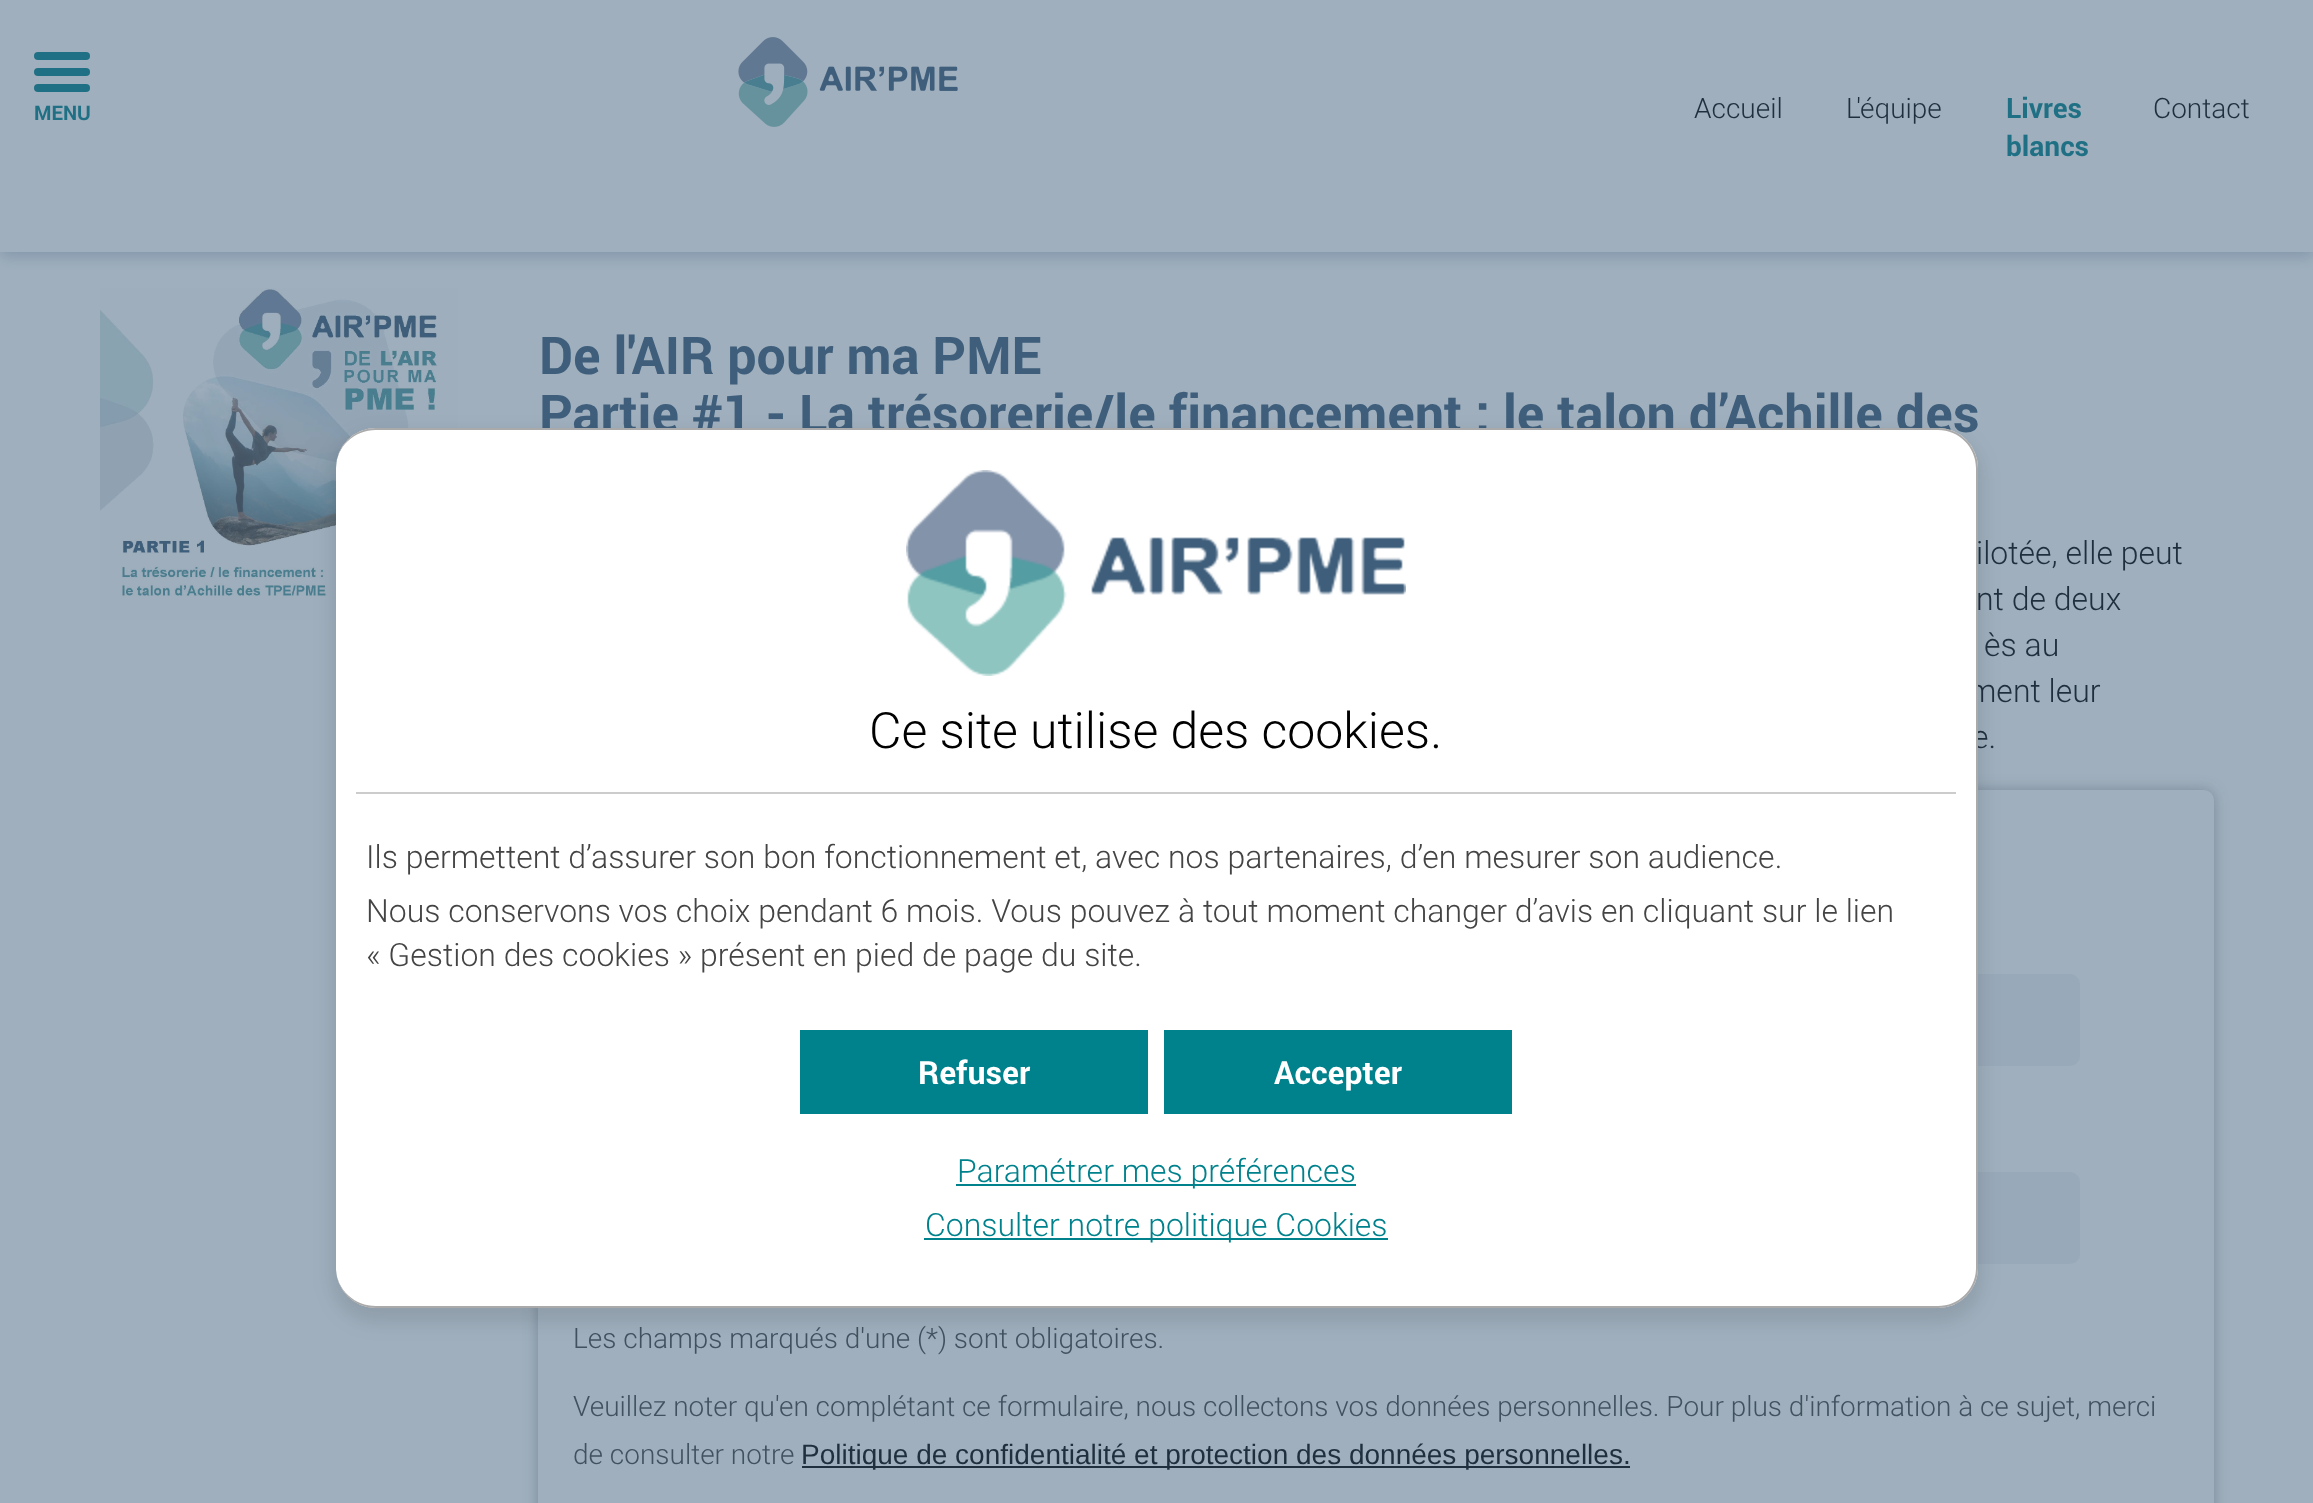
<svg xmlns="http://www.w3.org/2000/svg" width="2313" height="1503" viewBox="0 0 2313 1503">
  <defs>
    <clipPath id="clip1"><rect x="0" y="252" width="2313" height="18"/></clipPath>
    <filter id="blur1" x="-50%" y="-200%" width="200%" height="500%"><feGaussianBlur stdDeviation="8"/></filter>
    <filter id="blur2" x="-50%" y="-200%" width="200%" height="500%"><feGaussianBlur stdDeviation="7"/></filter>
    <filter id="blur3" x="-50%" y="-200%" width="200%" height="500%"><feGaussianBlur stdDeviation="10"/></filter>
  </defs>
  <rect width="100%" height="100%" fill="#9fafbd"/>
  <g clip-path="url(#clip1)">
    <rect x="0" y="4" width="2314" height="252" fill="#607993" fill-opacity="0.5" filter="url(#blur1)"/>
  </g>
  <image x="738" y="37" width="220" height="90" href="img1.png"/>
  <rect x="34" y="68" width="56" height="8" rx="4" fill="#1f7084"/>
  <rect x="34" y="52" width="56" height="8" rx="4" fill="#1f7084"/>
  <rect x="34" y="84" width="56" height="8" rx="4" fill="#1f7084"/>
  <text x="34" y="120" font-family="Roboto" font-size="20" font-weight="bold" fill="#1f7084">MENU</text>
  <text x="1694" y="118" font-family="Roboto" font-size="28" font-weight="300" fill="#1f2f3e">Accueil</text>
  <text x="1846" y="118" font-family="Roboto" font-size="28" font-weight="300" fill="#1f2f3e">L'équipe</text>
  <text x="2006" y="118" font-family="Roboto" font-size="28" font-weight="bold" fill="#1f7084">Livres</text>
  <text x="2006" y="156" font-family="Roboto" font-size="28" font-weight="bold" fill="#1f7084">blancs</text>
  <text x="2153" y="118" font-family="Roboto" font-size="28" font-weight="300" fill="#1f2f3e">Contact</text>
  <image x="100" y="288" width="358" height="332" href="img2.png"/>
  <text x="539" y="374" font-family="Roboto" font-size="52" font-weight="bold" fill="#3e5e7b">De l'AIR pour ma PME</text>
  <text x="539" y="432" font-family="Roboto" font-size="52" font-weight="bold" fill="#3e5e7b">Partie #1 - La trésorerie/le financement : le talon d’Achille des</text>
  <text x="1976" y="564" font-family="Roboto" font-size="32" font-weight="300" fill="#1f2f3e">ilotée, elle peut</text>
  <text x="1976" y="610" font-family="Roboto" font-size="32" font-weight="300" fill="#1f2f3e">nt de deux</text>
  <text x="1984" y="656" font-family="Roboto" font-size="32" font-weight="300" fill="#1f2f3e">ès au</text>
  <text x="1968" y="702" font-family="Roboto" font-size="32" font-weight="300" fill="#1f2f3e">ment leur</text>
  <text x="1972" y="748" font-family="Roboto" font-size="32" font-weight="300" fill="#1f2f3e">e.</text>
  <rect x="538" y="790" width="1676" height="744" rx="10" fill="#566675" fill-opacity="0.51" filter="url(#blur2)"/>
  <rect x="538" y="790" width="1676" height="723" rx="10" fill="#9fafbd"/>
  <rect x="1476" y="974" width="604" height="92" rx="10" fill="#98a9b9"/>
  <rect x="1476" y="1172" width="604" height="92" rx="10" fill="#98a9b9"/>
  <text x="573" y="1348" font-family="Roboto" font-size="28" font-weight="300" fill="#415160">Les champs marqués d'une (*) sont obligatoires.</text>
  <text x="573" y="1416" font-family="Roboto" font-size="28" font-weight="300" fill="#415160">Veuillez noter qu'en complétant ce formulaire, nous collectons vos données personnelles. Pour plus d'information à ce sujet, merci</text>
  <text x="573" y="1464" font-family="Roboto" font-size="28" font-weight="300" fill="#415160">de consulter notre</text>
  <rect x="802" y="1466" width="828" height="2" fill="#1f2f3e"/>
  <text x="801" y="1464" font-family="Liberation Sans" font-size="28" fill="#1f2f3e">Politique de confidentialité et protection des données personnelles.</text>
  <rect x="332" y="434" width="1650" height="888" rx="44" fill="#000000" fill-opacity="0.1" filter="url(#blur3)"/>
  <rect x="336" y="428" width="1642" height="880" rx="40" fill="#ffffff"/>
  <path d="M376 428H1938C1960 428 1978 446 1978 468V1268C1978 1290 1960 1308 1938 1308H376C354 1308 336 1290 336 1268V468C336 446 354 428 376 428ZM376 430H1938C1959 430 1976 447 1976 468V1268C1976 1289 1959 1306 1938 1306H376C354 1306 336 1289 336 1268V468C336 447 354 430 376 430Z" fill="#aaaaaa" fill-rule="evenodd"/>
  <rect x="356" y="792" width="1600" height="2" fill="#cccccc"/>
  <image x="906" y="470" width="500" height="206" href="img3.png"/>
  <text x="869" y="748" font-family="Roboto" font-size="50" font-weight="300" fill="#000000">Ce site utilise des cookies.</text>
  <text x="366" y="868" font-family="Roboto" font-size="32" font-weight="300" fill="#444444">Ils permettent d’assurer son bon fonctionnement et, avec nos partenaires, d’en mesurer son audience.</text>
  <text x="366" y="922" font-family="Roboto" font-size="32" font-weight="300" fill="#444444">Nous conservons vos choix pendant 6 mois. Vous pouvez à tout moment changer d’avis en cliquant sur le lien</text>
  <text x="366" y="966" font-family="Roboto" font-size="32" font-weight="300" fill="#444444">« Gestion des cookies » présent en pied de page du site.</text>
  <rect x="800" y="1030" width="348" height="84" fill="#00828d"/>
  <text x="918" y="1084" font-family="Roboto" font-size="32" font-weight="bold" fill="#ffffff">Refuser</text>
  <rect x="1164" y="1030" width="348" height="84" fill="#00828d"/>
  <text x="1274" y="1084" font-family="Roboto" font-size="32" font-weight="bold" fill="#ffffff">Accepter</text>
  <rect x="956" y="1184" width="400" height="2" fill="#00828d"/>
  <text x="957" y="1182" font-family="Roboto" font-size="32" font-weight="300" fill="#00828d">Paramétrer mes préférences</text>
  <rect x="924" y="1238" width="464" height="2" fill="#00828d"/>
  <text x="925" y="1236" font-family="Roboto" font-size="32" font-weight="300" fill="#00828d">Consulter notre politique Cookies</text>
</svg>
